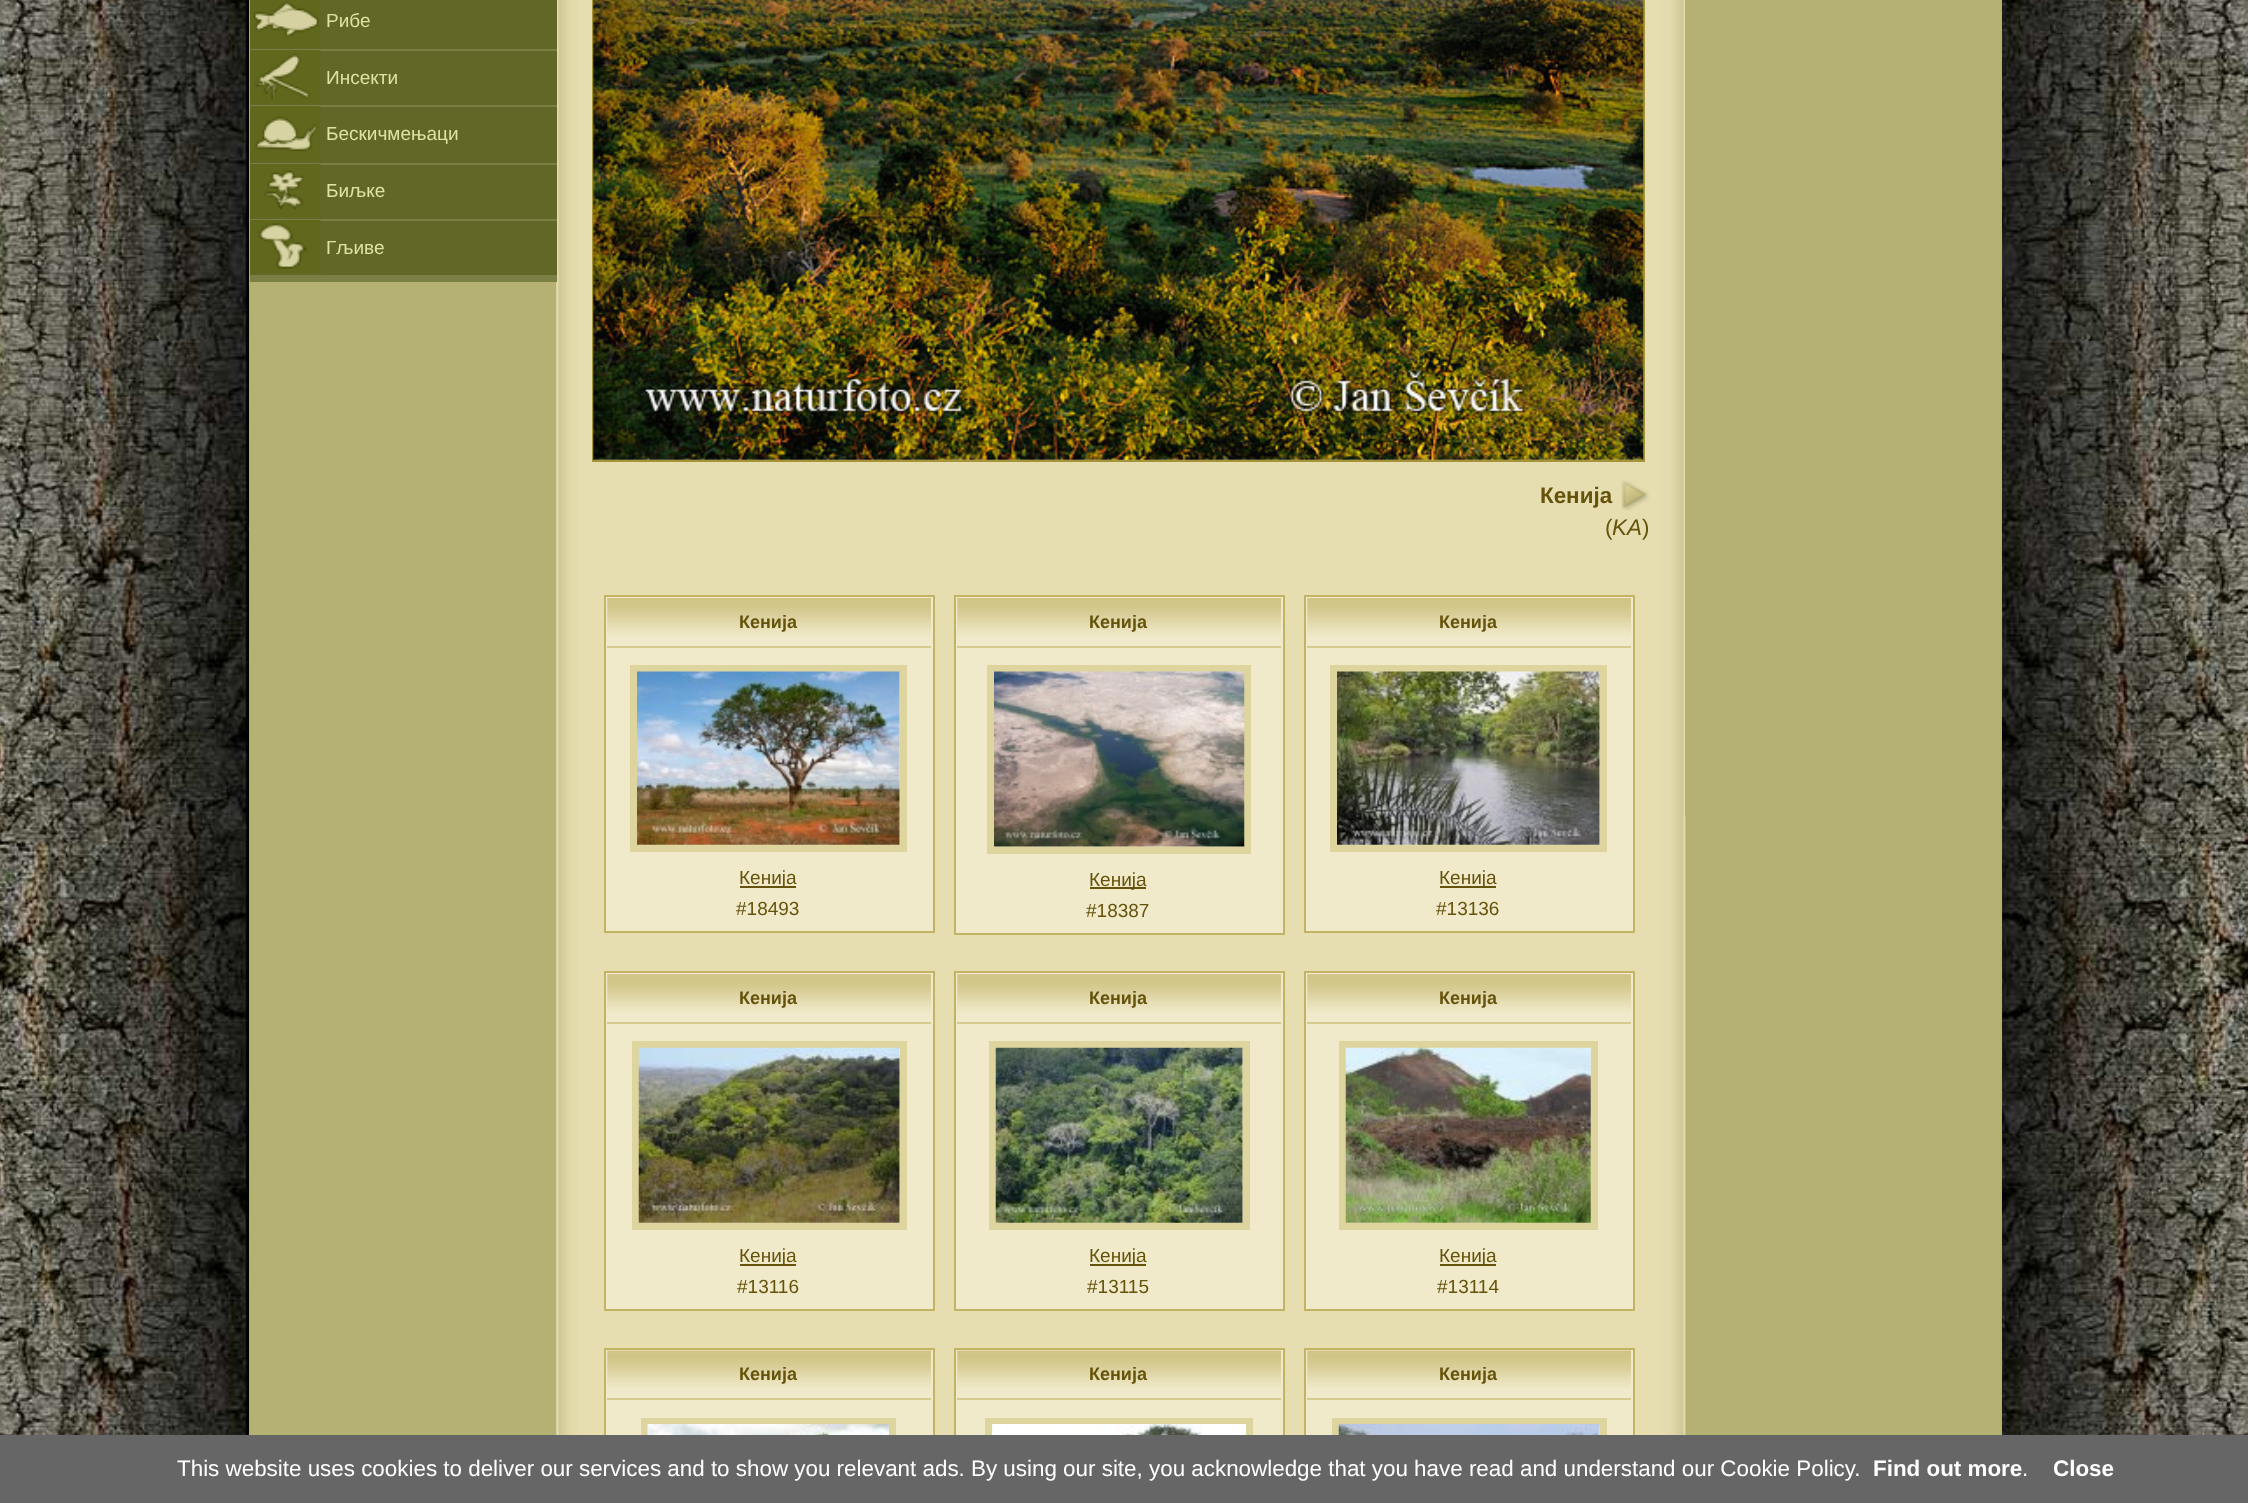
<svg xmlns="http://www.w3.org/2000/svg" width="2248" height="1503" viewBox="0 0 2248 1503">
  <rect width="100%" height="100%" fill="#ffffff"/>
  <image x="0" y="0" width="2248" height="1435" href="img1.png"/>
  <image x="251" y="282" width="306" height="1153" href="img2.png"/>
  <rect x="2000" y="0" width="2" height="1435" fill="#b5b06c"/>
  <rect x="249" y="0" width="2" height="1435" fill="#b5b06c"/>
  <image x="556" y="0" width="1444" height="1435" href="img10.png"/>
  <rect x="250" y="275" width="307" height="7" fill="#7b7f44"/>
  <rect x="250" y="49" width="307" height="2" fill="#7b7f44"/>
  <rect x="250" y="0" width="307" height="49" fill="#626727"/>
  <image x="250" y="0" width="71" height="48" href="img3.png"/>
  <text x="326" y="27" font-family="Liberation Sans" font-size="19" fill="#e0e2a0">Рибе</text>
  <image x="250" y="50" width="71" height="1" href="img4.png"/>
  <rect x="250" y="105" width="307" height="2" fill="#7b7f44"/>
  <rect x="250" y="51" width="307" height="54" fill="#626727"/>
  <image x="250" y="50" width="71" height="54" href="img5.png"/>
  <text x="326" y="84" font-family="Liberation Sans" font-size="19" fill="#e0e2a0">Инсекти</text>
  <image x="250" y="106" width="71" height="1" href="img4.png"/>
  <rect x="250" y="163" width="307" height="2" fill="#7b7f44"/>
  <rect x="250" y="107" width="307" height="56" fill="#626727"/>
  <image x="250" y="106" width="71" height="56" href="img6.png"/>
  <text x="326" y="140" font-family="Liberation Sans" font-size="19" fill="#e0e2a0">Бескичмењаци</text>
  <image x="250" y="164" width="71" height="1" href="img7.png"/>
  <rect x="250" y="219" width="307" height="2" fill="#7b7f44"/>
  <rect x="250" y="165" width="307" height="54" fill="#626727"/>
  <image x="250" y="164" width="71" height="54" href="img8.png"/>
  <text x="326" y="197" font-family="Liberation Sans" font-size="19" fill="#e0e2a0">Биљке</text>
  <image x="250" y="220" width="71" height="1" href="img7.png"/>
  <rect x="250" y="221" width="307" height="54" fill="#626727"/>
  <image x="250" y="220" width="71" height="54" href="img9.png"/>
  <text x="326" y="254" font-family="Liberation Sans" font-size="19" fill="#e0e2a0">Гљиве</text>
  <rect x="593" y="-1" width="1051" height="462" fill="none" stroke="#a49437" stroke-width="2"/>
  <image x="593" y="0" width="1051" height="460" href="img11.png"/>
  <text x="1540" y="503" font-family="Liberation Sans" font-size="22.4" font-weight="bold" fill="#65530b">Кенија</text>
  <image x="1621" y="480" width="28" height="31" href="img12.png"/>
  <text x="1605" y="535" font-family="Liberation Sans" font-size="22.4" fill="#65530b">(</text>
  <text x="1612" y="535" font-family="Liberation Sans" font-size="22.4" font-style="italic" fill="#65530b">KA</text>
  <text x="1642" y="535" font-family="Liberation Sans" font-size="22.4" fill="#65530b">)</text>
  <rect x="605" y="596" width="329" height="336" fill="#f0eaca" stroke="#c2b463" stroke-width="2"/>
  <image x="607" y="598" width="324" height="38" href="img13.png"/>
  <rect x="607" y="646" width="324" height="2" fill="#d6cb8f"/>
  <text x="739" y="628" font-family="Liberation Sans" font-size="18" font-weight="bold" fill="#65530b">Кенија</text>
  <rect x="633.5" y="668.5" width="270" height="180" fill="none" stroke="#ded49e" stroke-width="7"/>
  <image x="637" y="671" width="263" height="174" href="img14.png"/>
  <rect x="740" y="886" width="56" height="2" fill="#65530b"/>
  <text x="739" y="884" font-family="Liberation Sans" font-size="19" fill="#65530b">Кенија</text>
  <text x="736" y="915" font-family="Liberation Sans" font-size="19" fill="#65530b">#18493</text>
  <rect x="955" y="596" width="329" height="338" fill="#f0eaca" stroke="#c2b463" stroke-width="2"/>
  <image x="957" y="598" width="324" height="38" href="img13.png"/>
  <rect x="957" y="646" width="324" height="2" fill="#d6cb8f"/>
  <text x="1089" y="628" font-family="Liberation Sans" font-size="18" font-weight="bold" fill="#65530b">Кенија</text>
  <rect x="990.5" y="668.5" width="257" height="182" fill="none" stroke="#ded49e" stroke-width="7"/>
  <image x="994" y="671" width="251" height="176" href="img15.png"/>
  <rect x="1090" y="887" width="56" height="2" fill="#65530b"/>
  <text x="1089" y="886" font-family="Liberation Sans" font-size="19" fill="#65530b">Кенија</text>
  <text x="1086" y="917" font-family="Liberation Sans" font-size="19" fill="#65530b">#18387</text>
  <rect x="1305" y="596" width="329" height="336" fill="#f0eaca" stroke="#c2b463" stroke-width="2"/>
  <image x="1307" y="598" width="324" height="38" href="img13.png"/>
  <rect x="1307" y="646" width="324" height="2" fill="#d6cb8f"/>
  <text x="1439" y="628" font-family="Liberation Sans" font-size="18" font-weight="bold" fill="#65530b">Кенија</text>
  <rect x="1333.5" y="668.5" width="270" height="180" fill="none" stroke="#ded49e" stroke-width="7"/>
  <image x="1337" y="671" width="263" height="174" href="img16.png"/>
  <rect x="1440" y="886" width="56" height="2" fill="#65530b"/>
  <text x="1439" y="884" font-family="Liberation Sans" font-size="19" fill="#65530b">Кенија</text>
  <text x="1436" y="915" font-family="Liberation Sans" font-size="19" fill="#65530b">#13136</text>
  <rect x="605" y="972" width="329" height="338" fill="#f0eaca" stroke="#c2b463" stroke-width="2"/>
  <image x="607" y="974" width="324" height="38" href="img17.png"/>
  <rect x="607" y="1022" width="324" height="2" fill="#d6cb8f"/>
  <text x="739" y="1004" font-family="Liberation Sans" font-size="18" font-weight="bold" fill="#65530b">Кенија</text>
  <rect x="635.5" y="1044.5" width="268" height="182" fill="none" stroke="#ded49e" stroke-width="7"/>
  <image x="638" y="1047" width="262" height="176" href="img18.png"/>
  <rect x="740" y="1264" width="56" height="2" fill="#65530b"/>
  <text x="739" y="1262" font-family="Liberation Sans" font-size="19" fill="#65530b">Кенија</text>
  <text x="737" y="1293" font-family="Liberation Sans" font-size="19" fill="#65530b">#13116</text>
  <rect x="955" y="972" width="329" height="338" fill="#f0eaca" stroke="#c2b463" stroke-width="2"/>
  <image x="957" y="974" width="324" height="38" href="img17.png"/>
  <rect x="957" y="1022" width="324" height="2" fill="#d6cb8f"/>
  <text x="1089" y="1004" font-family="Liberation Sans" font-size="18" font-weight="bold" fill="#65530b">Кенија</text>
  <rect x="992.5" y="1044.5" width="254" height="182" fill="none" stroke="#ded49e" stroke-width="7"/>
  <image x="995" y="1047" width="248" height="176" href="img19.png"/>
  <rect x="1090" y="1264" width="56" height="2" fill="#65530b"/>
  <text x="1089" y="1262" font-family="Liberation Sans" font-size="19" fill="#65530b">Кенија</text>
  <text x="1087" y="1293" font-family="Liberation Sans" font-size="19" fill="#65530b">#13115</text>
  <rect x="1305" y="972" width="329" height="338" fill="#f0eaca" stroke="#c2b463" stroke-width="2"/>
  <image x="1307" y="974" width="324" height="38" href="img17.png"/>
  <rect x="1307" y="1022" width="324" height="2" fill="#d6cb8f"/>
  <text x="1439" y="1004" font-family="Liberation Sans" font-size="18" font-weight="bold" fill="#65530b">Кенија</text>
  <rect x="1342.5" y="1044.5" width="252" height="182" fill="none" stroke="#ded49e" stroke-width="7"/>
  <image x="1345" y="1047" width="246" height="176" href="img20.png"/>
  <rect x="1440" y="1264" width="56" height="2" fill="#65530b"/>
  <text x="1439" y="1262" font-family="Liberation Sans" font-size="19" fill="#65530b">Кенија</text>
  <text x="1437" y="1293" font-family="Liberation Sans" font-size="19" fill="#65530b">#13114</text>
  <rect x="606" y="1350" width="327" height="85" fill="#f0eaca"/>
  <rect x="605" y="1349" width="329" height="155" fill="none" stroke="#c2b463" stroke-width="2"/>
  <image x="607" y="1350" width="324" height="38" href="img21.png"/>
  <rect x="607" y="1398" width="324" height="2" fill="#d6cb8f"/>
  <text x="739" y="1380" font-family="Liberation Sans" font-size="18" font-weight="bold" fill="#65530b">Кенија</text>
  <rect x="644.5" y="1421.5" width="248" height="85" fill="none" stroke="#ded49e" stroke-width="7"/>
  <image x="647" y="1424" width="242" height="11" href="img22.png"/>
  <rect x="956" y="1350" width="327" height="85" fill="#f0eaca"/>
  <rect x="955" y="1349" width="329" height="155" fill="none" stroke="#c2b463" stroke-width="2"/>
  <image x="957" y="1350" width="324" height="38" href="img21.png"/>
  <rect x="957" y="1398" width="324" height="2" fill="#d6cb8f"/>
  <text x="1089" y="1380" font-family="Liberation Sans" font-size="18" font-weight="bold" fill="#65530b">Кенија</text>
  <rect x="988.5" y="1421.5" width="261" height="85" fill="none" stroke="#ded49e" stroke-width="7"/>
  <image x="992" y="1424" width="254" height="11" href="img23.png"/>
  <rect x="1306" y="1350" width="327" height="85" fill="#f0eaca"/>
  <rect x="1305" y="1349" width="329" height="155" fill="none" stroke="#c2b463" stroke-width="2"/>
  <image x="1307" y="1350" width="324" height="38" href="img21.png"/>
  <rect x="1307" y="1398" width="324" height="2" fill="#d6cb8f"/>
  <text x="1439" y="1380" font-family="Liberation Sans" font-size="18" font-weight="bold" fill="#65530b">Кенија</text>
  <rect x="1335.5" y="1421.5" width="268" height="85" fill="none" stroke="#ded49e" stroke-width="7"/>
  <image x="1338" y="1424" width="262" height="11" href="img24.png"/>
  <rect x="1685" y="0" width="1" height="816" fill="#b5b172"/>
  <rect x="0" y="1435" width="2248" height="68" fill="#666666"/>
  <text x="177" y="1476" font-family="Liberation Sans" font-size="22.4" fill="#ffffff">This website uses cookies to deliver our services and to show you relevant ads. By using our site, you acknowledge that you have read and understand our Cookie Policy.</text>
  <text x="1873" y="1476" font-family="Liberation Sans" font-size="22.4" font-weight="bold" fill="#ffffff">Find out more</text>
  <text x="2022" y="1476" font-family="Liberation Sans" font-size="22.4" fill="#ffffff">.</text>
  <text x="2053" y="1476" font-family="Liberation Sans" font-size="22.4" font-weight="bold" fill="#ffffff">Close</text>
</svg>
